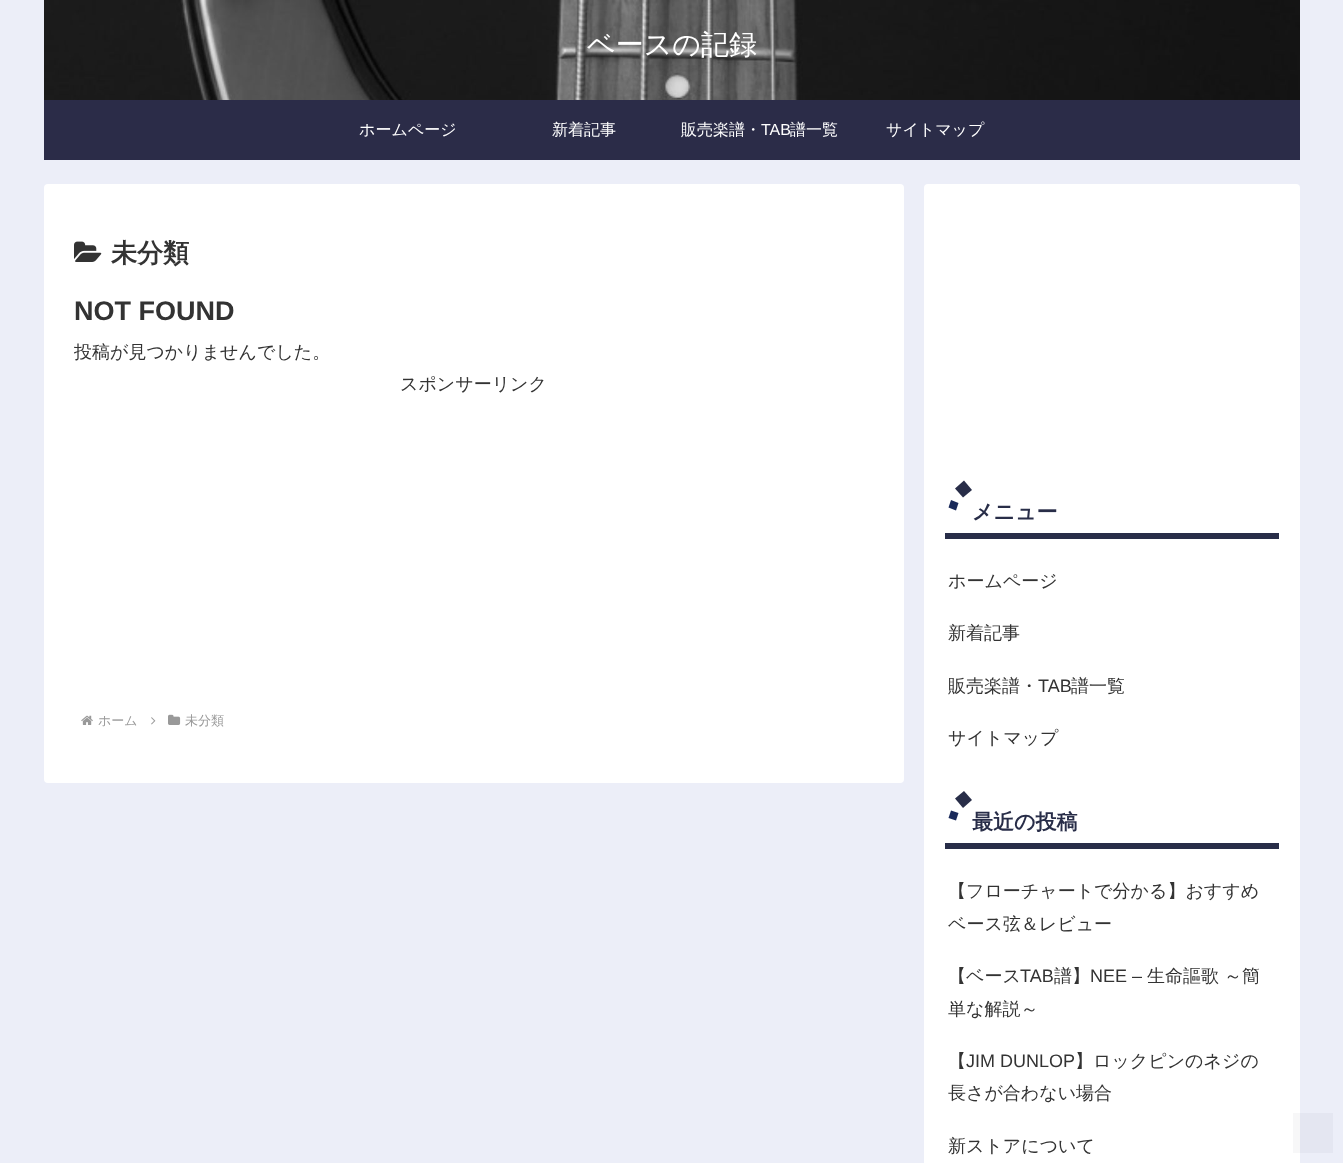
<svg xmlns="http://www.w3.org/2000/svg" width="1343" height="1163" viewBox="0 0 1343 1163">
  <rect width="100%" height="100%" fill="#eceef8"/>
  <rect x="44" y="100" width="1256" height="60" fill="#2b2c48"/>
  <image x="44" y="0" width="1256" height="100" href="img1.png"/>
  <text x="587" y="54" font-family="WenQuanYi Zen Hei" font-size="28" font-weight="500" fill="#ffffff">ベースの記録</text>
  <text x="359" y="135" font-family="WenQuanYi Zen Hei" font-size="16" font-weight="500" fill="#ffffff">ホームページ</text>
  <text x="552" y="135" font-family="WenQuanYi Zen Hei" font-size="16" font-weight="500" fill="#ffffff">新着記事</text>
  <text x="681" y="135" font-family="WenQuanYi Zen Hei" font-size="16" font-weight="500" fill="#ffffff">販売楽譜・</text>
  <text x="761" y="135" font-family="Liberation Sans" font-size="16" fill="#ffffff">TAB</text>
  <text x="790" y="135" font-family="WenQuanYi Zen Hei" font-size="16" font-weight="500" fill="#ffffff">譜一覧</text>
  <text x="886" y="135" font-family="WenQuanYi Zen Hei" font-size="16" font-weight="500" fill="#ffffff">サイトマップ</text>
  <rect x="44" y="184" width="860" height="599" rx="4" fill="#ffffff"/>
  <image x="74" y="241" width="28" height="21" href="img2.png"/>
  <text x="111" y="262" font-family="WenQuanYi Zen Hei" font-size="26" font-weight="bold" fill="#333333">未分類</text>
  <text x="74" y="320" font-family="Liberation Sans" font-size="27" font-weight="bold" fill="#333333">NOT FOUND</text>
  <text x="74" y="358" font-family="WenQuanYi Zen Hei" font-size="18" font-weight="500" fill="#333333">投稿が見つかりませんでした。</text>
  <text x="400" y="390" font-family="WenQuanYi Zen Hei" font-size="18" font-weight="500" fill="#333333">スポンサーリンク</text>
  <image x="81" y="715" width="12" height="10" href="img3.png"/>
  <text x="98" y="725" font-family="WenQuanYi Zen Hei" font-size="13" font-weight="500" fill="#999999">ホーム</text>
  <image x="151" y="717" width="5" height="8" href="img4.png"/>
  <image x="168" y="714" width="13" height="11" href="img5.png"/>
  <text x="185" y="725" font-family="WenQuanYi Zen Hei" font-size="13" font-weight="500" fill="#999999">未分類</text>
  <rect x="924" y="184" width="376" height="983" rx="4" fill="#ffffff"/>
  <rect x="945" y="533" width="334" height="6" fill="#282d48"/>
  <path d="M964 480.5L972 490L963 497.5L955 488.5Z" fill="#282d48"/>
  <path d="M951 500L958.5 503L956 510.5L948.5 507.5Z" fill="#19295a"/>
  <text x="972" y="519" font-family="WenQuanYi Zen Hei" font-size="21" font-weight="bold" fill="#282d48">メニュー</text>
  <text x="948" y="587" font-family="WenQuanYi Zen Hei" font-size="18" font-weight="500" fill="#333333">ホームページ</text>
  <text x="948" y="639" font-family="WenQuanYi Zen Hei" font-size="18" font-weight="500" fill="#333333">新着記事</text>
  <text x="948" y="692" font-family="WenQuanYi Zen Hei" font-size="18" font-weight="500" fill="#333333">販売楽譜・</text>
  <text x="1038" y="692" font-family="Liberation Sans" font-size="18" fill="#333333">TAB</text>
  <text x="1071" y="692" font-family="WenQuanYi Zen Hei" font-size="18" font-weight="500" fill="#333333">譜一覧</text>
  <text x="948" y="744" font-family="WenQuanYi Zen Hei" font-size="18" font-weight="500" fill="#333333">サイトマップ</text>
  <rect x="945" y="843" width="334" height="6" fill="#282d48"/>
  <path d="M964 791L972 800L963 808L955 798.5Z" fill="#282d48"/>
  <path d="M951 810.5L958.5 813L956 820.5L948.5 818Z" fill="#19295a"/>
  <text x="972" y="829" font-family="WenQuanYi Zen Hei" font-size="21" font-weight="bold" fill="#282d48">最近の投稿</text>
  <text x="948" y="897" font-family="WenQuanYi Zen Hei" font-size="18" font-weight="500" fill="#333333">【フローチャートで分かる】おすすめ</text>
  <text x="948" y="930" font-family="WenQuanYi Zen Hei" font-size="18" font-weight="500" fill="#333333">ベース弦＆レビュー</text>
  <text x="948" y="982" font-family="WenQuanYi Zen Hei" font-size="18" font-weight="500" fill="#333333">【ベース</text>
  <text x="1020" y="982" font-family="Liberation Sans" font-size="18" fill="#333333">TAB</text>
  <text x="1054" y="982" font-family="WenQuanYi Zen Hei" font-size="18" font-weight="500" fill="#333333">譜】</text>
  <text x="1090" y="982" font-family="Liberation Sans" font-size="18" fill="#333333">NEE –</text>
  <text x="1147" y="982" font-family="WenQuanYi Zen Hei" font-size="18" font-weight="500" fill="#333333">生命謳歌</text>
  <text x="1224" y="982" font-family="WenQuanYi Zen Hei" font-size="18" font-weight="500" fill="#333333">～簡</text>
  <text x="948" y="1015" font-family="WenQuanYi Zen Hei" font-size="18" font-weight="500" fill="#333333">単な解説～</text>
  <text x="948" y="1067" font-family="WenQuanYi Zen Hei" font-size="18" font-weight="500" fill="#333333">【</text>
  <text x="966" y="1067" font-family="Liberation Sans" font-size="18" fill="#333333">JIM DUNLOP</text>
  <text x="1075" y="1067" font-family="WenQuanYi Zen Hei" font-size="18" font-weight="500" fill="#333333">】ロックピンのネジの</text>
  <text x="948" y="1099" font-family="WenQuanYi Zen Hei" font-size="18" font-weight="500" fill="#333333">長さが合わない場合</text>
  <text x="948" y="1152" font-family="WenQuanYi Zen Hei" font-size="18" font-weight="500" fill="#333333">新ストアについて</text>
  <rect x="1293" y="1113" width="40" height="40" fill="#2b2c48" fill-opacity="0.04"/>
</svg>
